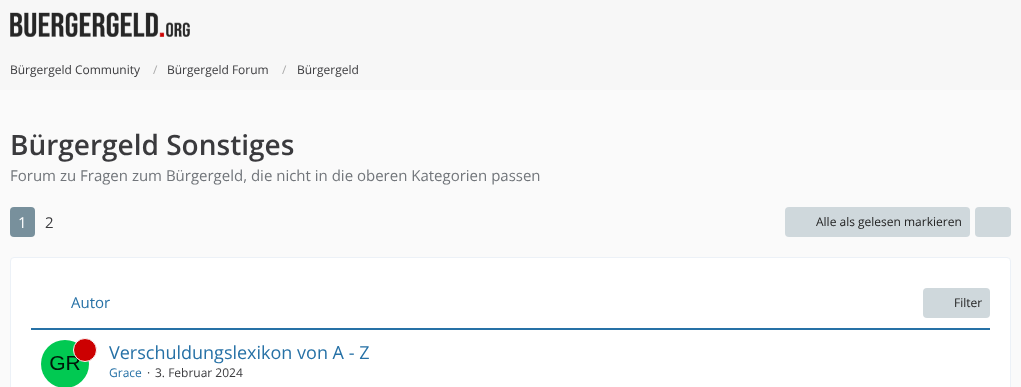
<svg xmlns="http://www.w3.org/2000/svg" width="1021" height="387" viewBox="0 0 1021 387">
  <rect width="100%" height="100%" fill="#fafafa"/>
  <rect x="0" y="0" width="1021" height="90" fill="#f7f7f7"/>
  <image x="10" y="12" width="180" height="25" href="img1.png"/>
  <text x="10" y="74" font-family="Open Sans" font-size="12" fill="#3a3a3d">Bürgergeld Community</text>
  <text x="153" y="74" font-family="Open Sans" font-size="12" fill="#aaaaaa">/</text>
  <text x="167" y="74" font-family="Open Sans" font-size="12" fill="#3a3a3d">Bürgergeld Forum</text>
  <text x="282" y="74" font-family="Open Sans" font-size="12" fill="#aaaaaa">/</text>
  <text x="297" y="74" font-family="Open Sans" font-size="12" fill="#3a3a3d">Bürgergeld</text>
  <text x="10" y="155" font-family="Open Sans" font-size="28" font-weight="600" fill="#3a3a3d">Bürgergeld Sonstiges</text>
  <text x="10" y="181" font-family="Open Sans" font-size="15" fill="#71757a">Forum zu Fragen zum Bürgergeld, die nicht in die oberen Kategorien passen</text>
  <rect x="10" y="207" width="25" height="30" rx="4" fill="#78909c"/>
  <text x="18" y="228" font-family="Open Sans" font-size="15" fill="#ffffff">1</text>
  <text x="45" y="228" font-family="Open Sans" font-size="15" fill="#3a3a3d">2</text>
  <rect x="785" y="207" width="185" height="30" rx="4" fill="#cfd8dc"/>
  <text x="816" y="226" font-family="Open Sans" font-size="12" fill="#212121">Alle als gelesen markieren</text>
  <rect x="975" y="207" width="36" height="30" rx="4" fill="#cfd8dc"/>
  <rect x="10.5" y="257.5" width="1000" height="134" rx="3.5" fill="#ffffff" stroke="#ecf1f7"/>
  <rect x="31" y="328" width="959" height="2" fill="#2671a6"/>
  <text x="71" y="308" font-family="Open Sans" font-size="15" fill="#2671a6">Autor</text>
  <rect x="923" y="288" width="67" height="30" rx="4" fill="#cfd8dc"/>
  <text x="954" y="307" font-family="Open Sans" font-size="12" fill="#212121">Filter</text>
  <image x="41" y="340" width="48" height="47" href="img2.png"/>
  <circle cx="85" cy="350" r="11.5" fill="#cc0001" stroke="#fafafa"/>
  <text x="109" y="359" font-family="Open Sans" font-size="18" fill="#2671a6">Verschuldungslexikon von A - Z</text>
  <text x="109" y="377" font-family="Open Sans" font-size="12" fill="#2671a6">Grace</text>
  <text x="147" y="377" font-family="Open Sans" font-size="12" fill="#3a3a3d">·</text>
  <text x="155" y="377" font-family="Open Sans" font-size="12" fill="#3a3a3d">3. Februar 2024</text>
</svg>
